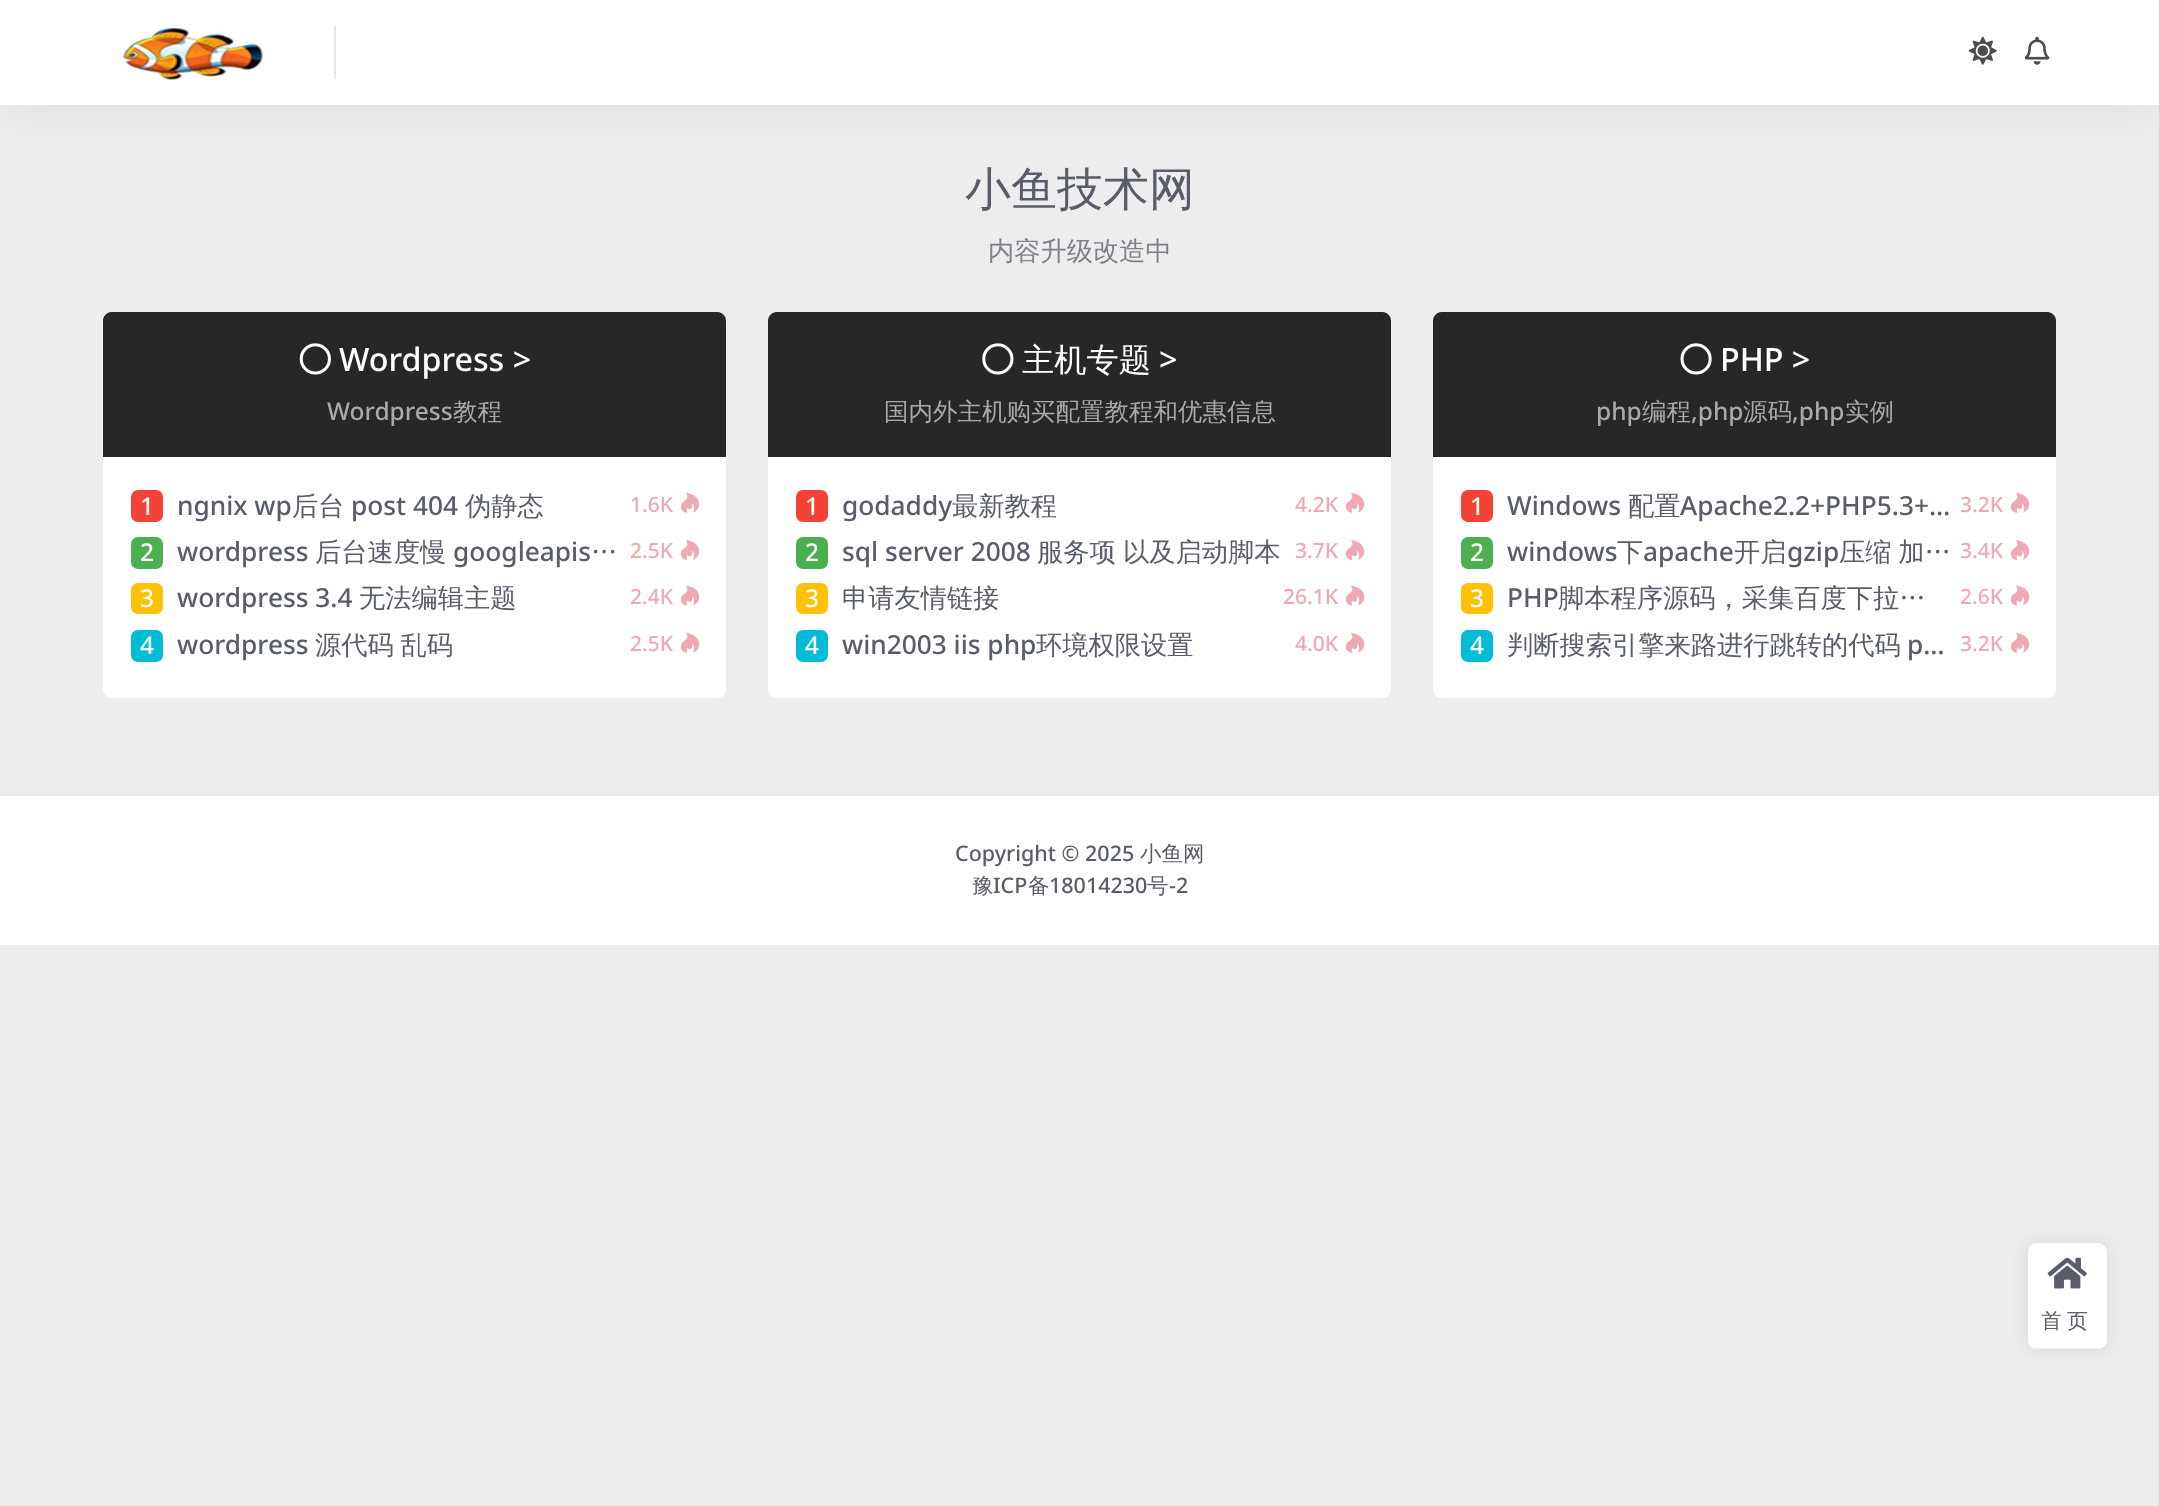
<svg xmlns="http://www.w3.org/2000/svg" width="2159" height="1506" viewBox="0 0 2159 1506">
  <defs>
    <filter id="blur1" x="-50%" y="-200%" width="200%" height="500%"><feGaussianBlur stdDeviation="26"/></filter>
    <filter id="blur2" x="-50%" y="-200%" width="200%" height="500%"><feGaussianBlur stdDeviation="9"/></filter>
    <clipPath id="clip1"><rect x="2028" y="1243" width="79" height="106" rx="9"/></clipPath>
  </defs>
  <rect width="100%" height="100%" fill="#ededed"/>
  <rect x="0" y="0" width="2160" height="105" fill="#000000" fill-opacity="0.07" filter="url(#blur1)"/>
  <rect x="0" y="0" width="2159" height="105" fill="#ffffff"/>
  <image x="122" y="28" width="142" height="53" href="img1.png"/>
  <rect x="334" y="26" width="2" height="53" fill="#e8e8e9"/>
  <image x="1968" y="36" width="29" height="29" href="img2.png"/>
  <image x="2024" y="36" width="26" height="29" href="img3.png"/>
  <text x="965" y="205" font-family="WenQuanYi Zen Hei" font-size="46" font-weight="500" fill="#595d69">小鱼技术网</text>
  <text x="988" y="260" font-family="WenQuanYi Zen Hei" font-size="26.25" font-weight="500" fill="#7e818a">内容升级改造中</text>
  <path d="M112 312H717C722 312 726 316 726 321V457H103V321C103 316 107 312 112 312Z" fill="#585858"/>
  <path d="M112 312H717C722 312 726 316 726 321V457H103V321C103 316 107 312 112 312Z" fill="#000000" fill-opacity="0.55"/>
  <image x="299" y="343" width="32" height="32" href="img4.png"/>
  <text x="339" y="371" font-family="Noto Sans" font-size="32.25" font-weight="500" fill="#ffffff">Wordpress &gt;</text>
  <text x="327" y="420" font-family="Noto Sans" font-size="24.5" font-weight="500" fill="#a9a9a9">Wordpress</text>
  <text x="453" y="420" font-family="WenQuanYi Zen Hei" font-size="24.5" font-weight="500" fill="#a9a9a9">教程</text>
  <path d="M103 457H726V689C726 694 722 698 717 698H112C107 698 103 694 103 689Z" fill="#ffffff"/>
  <rect x="131" y="490" width="32" height="32" rx="7" fill="#f44336"/>
  <text x="140" y="515" font-family="Noto Sans" font-size="24.5" font-weight="500" fill="#ffffff">1</text>
  <text x="177" y="515" font-family="Noto Sans" font-size="26.25" font-weight="500" fill="#595d69">ngnix wp</text>
  <text x="292" y="515" font-family="WenQuanYi Zen Hei" font-size="26.25" font-weight="500" fill="#595d69">后台</text>
  <text x="351" y="515" font-family="Noto Sans" font-size="26.25" font-weight="500" fill="#595d69">post 404</text>
  <text x="465" y="515" font-family="WenQuanYi Zen Hei" font-size="26.25" font-weight="500" fill="#595d69">伪静态</text>
  <text x="630" y="512" font-family="Noto Sans" font-size="21" font-weight="500" fill="#efa9b2">1.6K</text>
  <image x="680" y="492" width="20" height="21" href="img5.png"/>
  <rect x="131" y="537" width="32" height="32" rx="7" fill="#4caf50"/>
  <text x="140" y="561" font-family="Noto Sans" font-size="24.5" font-weight="500" fill="#ffffff">2</text>
  <text x="177" y="561" font-family="Noto Sans" font-size="26.25" font-weight="500" fill="#595d69">wordpress</text>
  <text x="315" y="561" font-family="WenQuanYi Zen Hei" font-size="26.25" font-weight="500" fill="#595d69">后台速度慢</text>
  <text x="453" y="561" font-family="Noto Sans" font-size="26.25" font-weight="500" fill="#595d69">googleapis</text>
  <text x="591" y="561" font-family="WenQuanYi Zen Hei" font-size="26.25" font-weight="500" fill="#595d69">…</text>
  <text x="630" y="558" font-family="Noto Sans" font-size="21" font-weight="500" fill="#efa9b2">2.5K</text>
  <image x="680" y="540" width="20" height="21" href="img6.png"/>
  <rect x="131" y="583" width="32" height="31" rx="7" fill="#ffc107"/>
  <text x="140" y="607" font-family="Noto Sans" font-size="24.5" font-weight="500" fill="#ffffff">3</text>
  <text x="177" y="607" font-family="Noto Sans" font-size="26.25" font-weight="500" fill="#595d69">wordpress 3.4</text>
  <text x="359" y="607" font-family="WenQuanYi Zen Hei" font-size="26.25" font-weight="500" fill="#595d69">无法编辑主题</text>
  <text x="630" y="604" font-family="Noto Sans" font-size="21" font-weight="500" fill="#efa9b2">2.4K</text>
  <image x="680" y="585" width="20" height="21" href="img7.png"/>
  <rect x="131" y="630" width="32" height="32" rx="7" fill="#00bcd4"/>
  <text x="140" y="654" font-family="Noto Sans" font-size="24.5" font-weight="500" fill="#ffffff">4</text>
  <text x="177" y="654" font-family="Noto Sans" font-size="26.25" font-weight="500" fill="#595d69">wordpress</text>
  <text x="315" y="654" word-spacing="-1" font-family="WenQuanYi Zen Hei" font-size="26.25" font-weight="500" fill="#595d69">源代码 乱码</text>
  <text x="630" y="651" font-family="Noto Sans" font-size="21" font-weight="500" fill="#efa9b2">2.5K</text>
  <image x="680" y="632" width="20" height="21" href="img5.png"/>
  <path d="M777 312H1382C1387 312 1391 316 1391 321V457H768V321C768 316 772 312 777 312Z" fill="#585858"/>
  <path d="M777 312H1382C1387 312 1391 316 1391 321V457H768V321C768 316 772 312 777 312Z" fill="#000000" fill-opacity="0.55"/>
  <image x="982" y="343" width="32" height="32" href="img8.png"/>
  <text x="1022" y="371" font-family="WenQuanYi Zen Hei" font-size="32.25" font-weight="500" fill="#ffffff">主机专题</text>
  <text x="1159" y="371" font-family="Noto Sans" font-size="32.25" font-weight="500" fill="#ffffff">&gt;</text>
  <text x="884" y="420" font-family="WenQuanYi Zen Hei" font-size="24.5" font-weight="500" fill="#a9a9a9">国内外主机购买配置教程和优惠信息</text>
  <path d="M768 457H1391V689C1391 694 1387 698 1382 698H777C772 698 768 694 768 689Z" fill="#ffffff"/>
  <rect x="796" y="490" width="32" height="32" rx="7" fill="#f44336"/>
  <text x="805" y="515" font-family="Noto Sans" font-size="24.5" font-weight="500" fill="#ffffff">1</text>
  <text x="842" y="515" font-family="Noto Sans" font-size="26.25" font-weight="500" fill="#595d69">godaddy</text>
  <text x="952" y="515" font-family="WenQuanYi Zen Hei" font-size="26.25" font-weight="500" fill="#595d69">最新教程</text>
  <text x="1295" y="512" font-family="Noto Sans" font-size="21" font-weight="500" fill="#efa9b2">4.2K</text>
  <image x="1345" y="492" width="20" height="21" href="img5.png"/>
  <rect x="796" y="537" width="32" height="32" rx="7" fill="#4caf50"/>
  <text x="805" y="561" font-family="Noto Sans" font-size="24.5" font-weight="500" fill="#ffffff">2</text>
  <text x="842" y="561" font-family="Noto Sans" font-size="26.25" font-weight="500" fill="#595d69">sql server 2008</text>
  <text x="1037" y="561" font-family="WenQuanYi Zen Hei" font-size="26.25" font-weight="500" fill="#595d69">服务项</text>
  <text x="1123" y="561" font-family="WenQuanYi Zen Hei" font-size="26.25" font-weight="500" fill="#595d69">以及启动脚本</text>
  <text x="1295" y="558" font-family="Noto Sans" font-size="21" font-weight="500" fill="#efa9b2">3.7K</text>
  <image x="1345" y="540" width="20" height="21" href="img6.png"/>
  <rect x="796" y="583" width="32" height="31" rx="7" fill="#ffc107"/>
  <text x="805" y="607" font-family="Noto Sans" font-size="24.5" font-weight="500" fill="#ffffff">3</text>
  <text x="842" y="607" font-family="WenQuanYi Zen Hei" font-size="26.25" font-weight="500" fill="#595d69">申请友情链接</text>
  <text x="1283" y="604" font-family="Noto Sans" font-size="21" font-weight="500" fill="#efa9b2">26.1K</text>
  <image x="1345" y="585" width="20" height="21" href="img7.png"/>
  <rect x="796" y="630" width="32" height="32" rx="7" fill="#00bcd4"/>
  <text x="805" y="654" font-family="Noto Sans" font-size="24.5" font-weight="500" fill="#ffffff">4</text>
  <text x="842" y="654" font-family="Noto Sans" font-size="26.25" font-weight="500" fill="#595d69">win2003 iis php</text>
  <text x="1036" y="654" font-family="WenQuanYi Zen Hei" font-size="26.25" font-weight="500" fill="#595d69">环境权限设置</text>
  <text x="1295" y="651" font-family="Noto Sans" font-size="21" font-weight="500" fill="#efa9b2">4.0K</text>
  <image x="1345" y="632" width="20" height="21" href="img5.png"/>
  <path d="M1442 312H2047C2052 312 2056 316 2056 321V457H1433V321C1433 316 1437 312 1442 312Z" fill="#585858"/>
  <path d="M1442 312H2047C2052 312 2056 316 2056 321V457H1433V321C1433 316 1437 312 1442 312Z" fill="#000000" fill-opacity="0.55"/>
  <image x="1680" y="343" width="32" height="32" href="img9.png"/>
  <text x="1720" y="371" font-family="Noto Sans" font-size="32.25" font-weight="500" fill="#ffffff">PHP &gt;</text>
  <text x="1596" y="420" font-family="Noto Sans" font-size="24.5" font-weight="500" fill="#a9a9a9">php</text>
  <text x="1642" y="420" font-family="WenQuanYi Zen Hei" font-size="24.5" font-weight="500" fill="#a9a9a9">编程</text>
  <text x="1691" y="420" font-family="Noto Sans" font-size="24.5" font-weight="500" fill="#a9a9a9">,php</text>
  <text x="1743" y="420" font-family="WenQuanYi Zen Hei" font-size="24.5" font-weight="500" fill="#a9a9a9">源码</text>
  <text x="1792" y="420" font-family="Noto Sans" font-size="24.5" font-weight="500" fill="#a9a9a9">,php</text>
  <text x="1845" y="420" font-family="WenQuanYi Zen Hei" font-size="24.5" font-weight="500" fill="#a9a9a9">实例</text>
  <path d="M1433 457H2056V689C2056 694 2052 698 2047 698H1442C1437 698 1433 694 1433 689Z" fill="#ffffff"/>
  <rect x="1461" y="490" width="32" height="32" rx="7" fill="#f44336"/>
  <text x="1470" y="515" font-family="Noto Sans" font-size="24.5" font-weight="500" fill="#ffffff">1</text>
  <text x="1507" y="515" font-family="Noto Sans" font-size="26.25" font-weight="500" fill="#595d69">Windows</text>
  <text x="1628" y="515" font-family="WenQuanYi Zen Hei" font-size="26.25" font-weight="500" fill="#595d69">配置</text>
  <text x="1680" y="515" font-family="Noto Sans" font-size="26.25" font-weight="500" fill="#595d69">Apache2.2+PHP5.3+…</text>
  <text x="1960" y="512" font-family="Noto Sans" font-size="21" font-weight="500" fill="#efa9b2">3.2K</text>
  <image x="2010" y="492" width="20" height="21" href="img5.png"/>
  <rect x="1461" y="537" width="32" height="32" rx="7" fill="#4caf50"/>
  <text x="1470" y="561" font-family="Noto Sans" font-size="24.5" font-weight="500" fill="#ffffff">2</text>
  <text x="1507" y="561" font-family="Noto Sans" font-size="26.25" font-weight="500" fill="#595d69">windows</text>
  <text x="1617" y="561" font-family="WenQuanYi Zen Hei" font-size="26.25" font-weight="500" fill="#595d69">下</text>
  <text x="1643" y="561" font-family="Noto Sans" font-size="26.25" font-weight="500" fill="#595d69">apache</text>
  <text x="1734" y="561" font-family="WenQuanYi Zen Hei" font-size="26.25" font-weight="500" fill="#595d69">开启</text>
  <text x="1787" y="561" font-family="Noto Sans" font-size="26.25" font-weight="500" fill="#595d69">gzip</text>
  <text x="1839" y="561" word-spacing="-1" font-family="WenQuanYi Zen Hei" font-size="26.25" font-weight="500" fill="#595d69">压缩 加…</text>
  <text x="1960" y="558" font-family="Noto Sans" font-size="21" font-weight="500" fill="#efa9b2">3.4K</text>
  <image x="2010" y="540" width="20" height="21" href="img6.png"/>
  <rect x="1461" y="583" width="32" height="31" rx="7" fill="#ffc107"/>
  <text x="1470" y="607" font-family="Noto Sans" font-size="24.5" font-weight="500" fill="#ffffff">3</text>
  <text x="1507" y="607" font-family="Noto Sans" font-size="26.25" font-weight="500" fill="#595d69">PHP</text>
  <text x="1558" y="607" font-family="WenQuanYi Zen Hei" font-size="26.25" font-weight="500" fill="#595d69">脚本程序源码，采集百度下拉…</text>
  <text x="1960" y="604" font-family="Noto Sans" font-size="21" font-weight="500" fill="#efa9b2">2.6K</text>
  <image x="2010" y="585" width="20" height="21" href="img7.png"/>
  <rect x="1461" y="630" width="32" height="32" rx="7" fill="#00bcd4"/>
  <text x="1470" y="654" font-family="Noto Sans" font-size="24.5" font-weight="500" fill="#ffffff">4</text>
  <text x="1507" y="654" font-family="WenQuanYi Zen Hei" font-size="26.25" font-weight="500" fill="#595d69">判断搜索引擎来路进行跳转的代码</text>
  <text x="1907" y="654" font-family="Noto Sans" font-size="26.25" font-weight="500" fill="#595d69">p…</text>
  <text x="1960" y="651" font-family="Noto Sans" font-size="21" font-weight="500" fill="#efa9b2">3.2K</text>
  <image x="2010" y="632" width="20" height="21" href="img5.png"/>
  <rect x="0" y="796" width="2159" height="149" fill="#ffffff"/>
  <text x="955" y="861" font-family="Noto Sans" font-size="21.5" font-weight="500" fill="#595d69">Copyright © 2025</text>
  <text x="1140" y="861" font-family="WenQuanYi Zen Hei" font-size="21.5" font-weight="500" fill="#595d69">小鱼网</text>
  <text x="972" y="893" font-family="WenQuanYi Zen Hei" font-size="21.5" font-weight="500" fill="#595d69">豫</text>
  <text x="993" y="893" font-family="Noto Sans" font-size="21.5" font-weight="500" fill="#595d69">ICP</text>
  <text x="1028" y="893" font-family="WenQuanYi Zen Hei" font-size="21.5" font-weight="500" fill="#595d69">备</text>
  <text x="1049" y="893" font-family="Noto Sans" font-size="21.5" font-weight="500" fill="#595d69">18014230</text>
  <text x="1147" y="893" font-family="WenQuanYi Zen Hei" font-size="21.5" font-weight="500" fill="#595d69">号</text>
  <text x="1169" y="893" font-family="Noto Sans" font-size="21.5" font-weight="500" fill="#595d69">-2</text>
  <rect x="2028" y="1243" width="79" height="106" rx="9" fill="#000000" fill-opacity="0.1" filter="url(#blur2)"/>
  <rect x="2028" y="1243" width="79" height="106" rx="9" fill="#ffffff"/>
  <g clip-path="url(#clip1)">
    <rect x="2028" y="1348" width="79" height="1" fill="#eeeeee"/>
  </g>
  <image x="2047" y="1257" width="40" height="32" href="img10.png"/>
  <text x="2041" y="1328" font-family="WenQuanYi Zen Hei" font-size="21" font-weight="500" letter-spacing="5" fill="#595d69">首页</text>
</svg>
